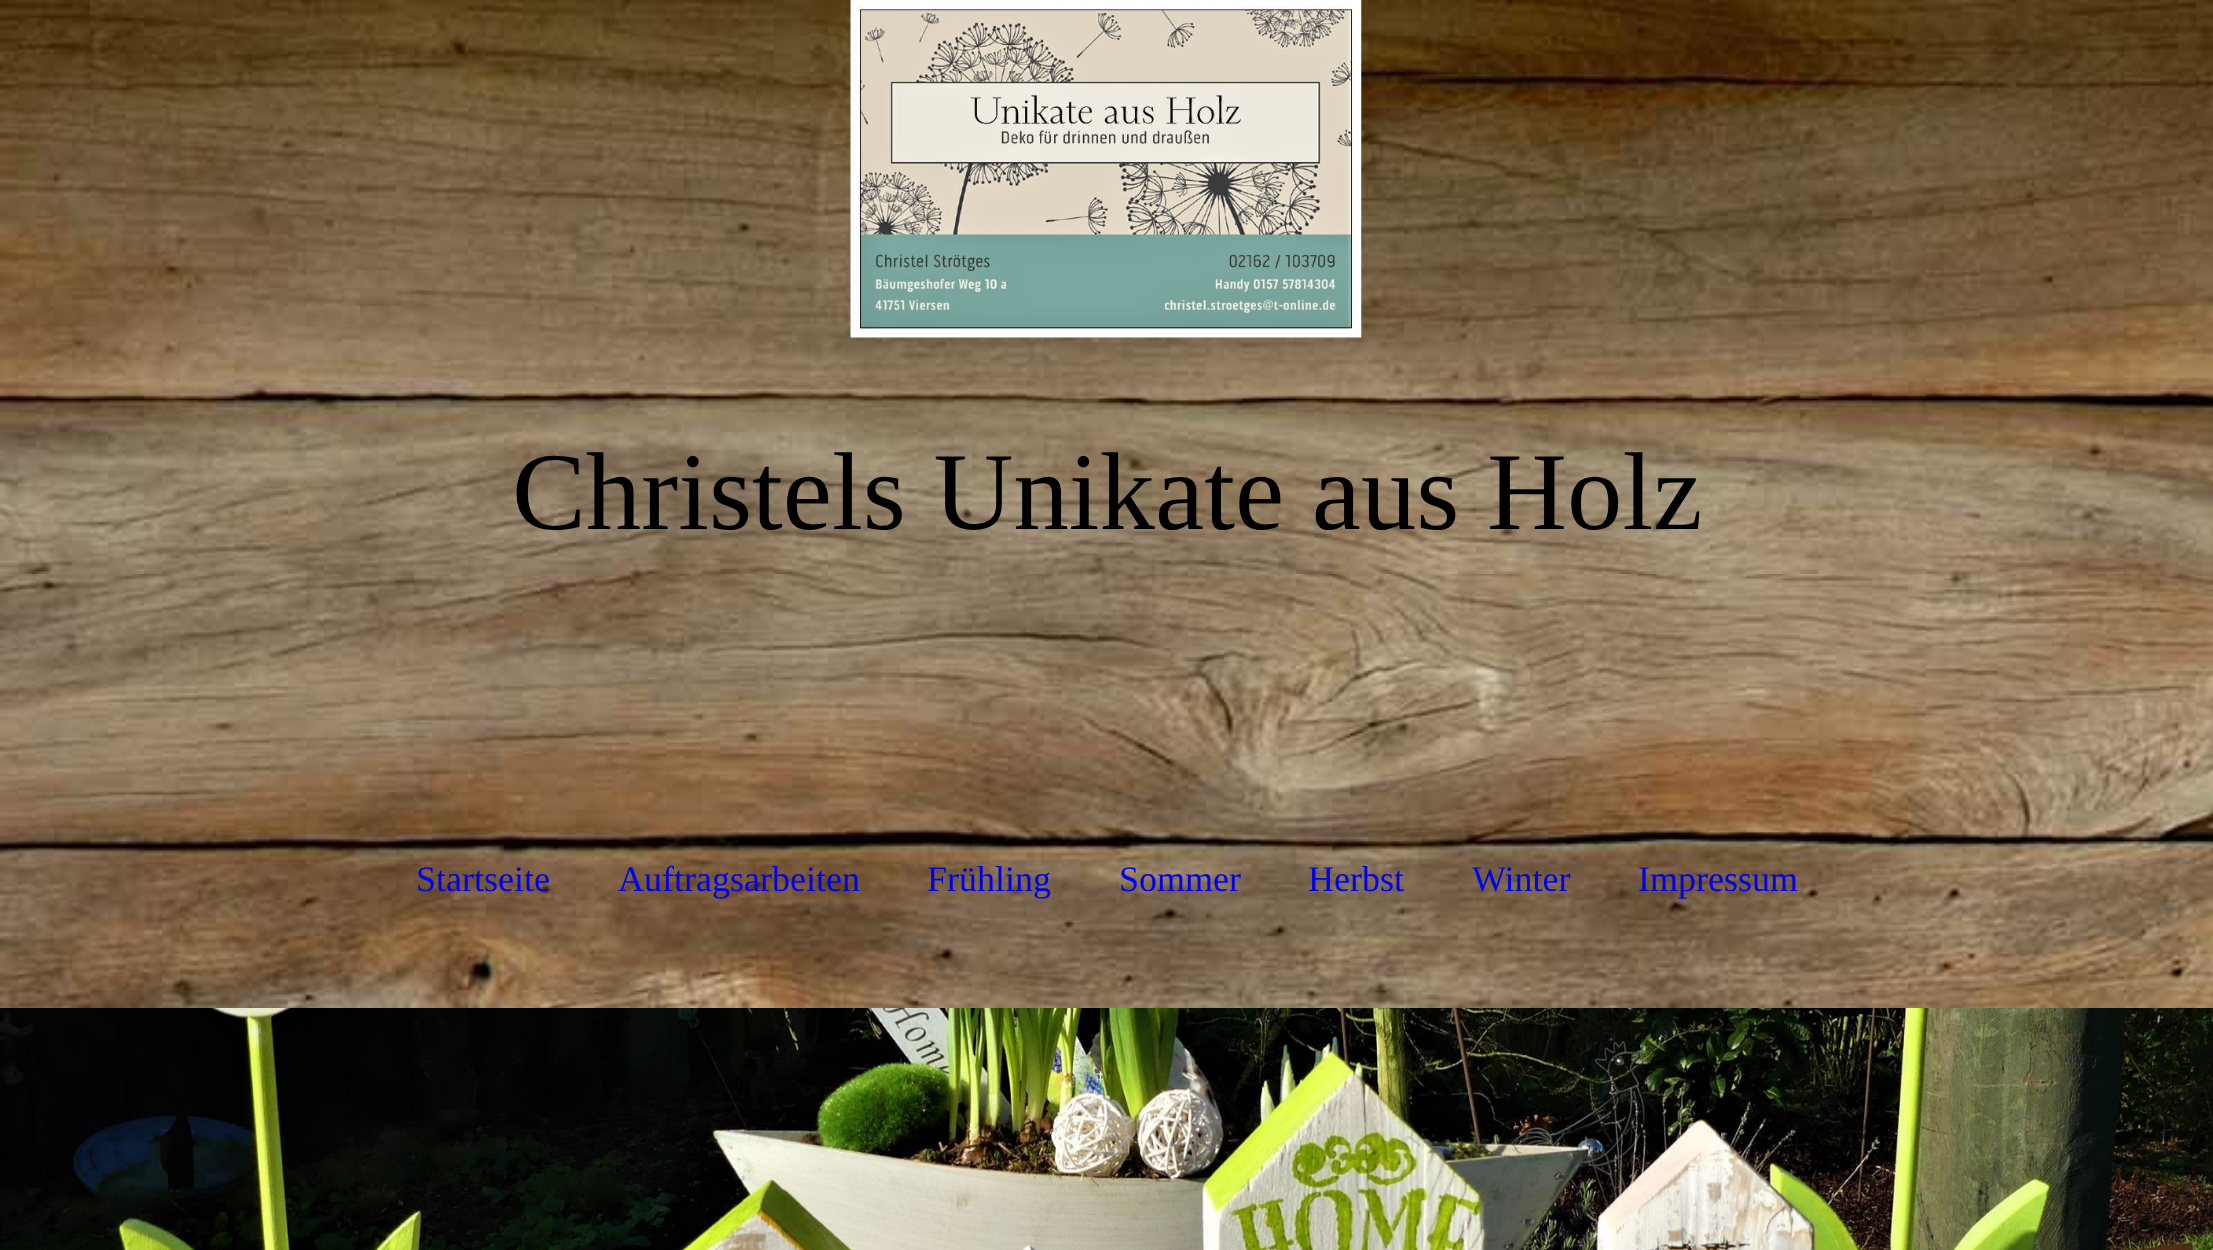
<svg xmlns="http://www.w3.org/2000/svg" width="2213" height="1250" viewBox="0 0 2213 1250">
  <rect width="100%" height="100%" fill="#ffffff"/>
  <image x="0" y="0" width="2213" height="1008" href="img1.png"/>
  <image x="850" y="0" width="512" height="338" href="img2.png"/>
  <text x="512" y="529" font-family="Liberation Serif" font-size="110.75" fill="#000000">Christels Unikate aus Holz</text>
  <text x="416" y="891" font-family="Liberation Serif" font-size="36" fill="#0000ee">Startseite</text>
  <text x="618" y="891" font-family="Liberation Serif" font-size="36" fill="#0000ee">Auftragsarbeiten</text>
  <text x="927" y="891" font-family="Liberation Serif" font-size="36" fill="#0000ee">Frühling</text>
  <text x="1119" y="891" font-family="Liberation Serif" font-size="36" fill="#0000ee">Sommer</text>
  <text x="1308" y="891" font-family="Liberation Serif" font-size="36" fill="#0000ee">Herbst</text>
  <text x="1472" y="891" font-family="Liberation Serif" font-size="36" fill="#0000ee">Winter</text>
  <text x="1638" y="891" font-family="Liberation Serif" font-size="36" fill="#0000ee">Impressum</text>
  <image x="0" y="1008" width="2213" height="242" href="img3.png"/>
</svg>
